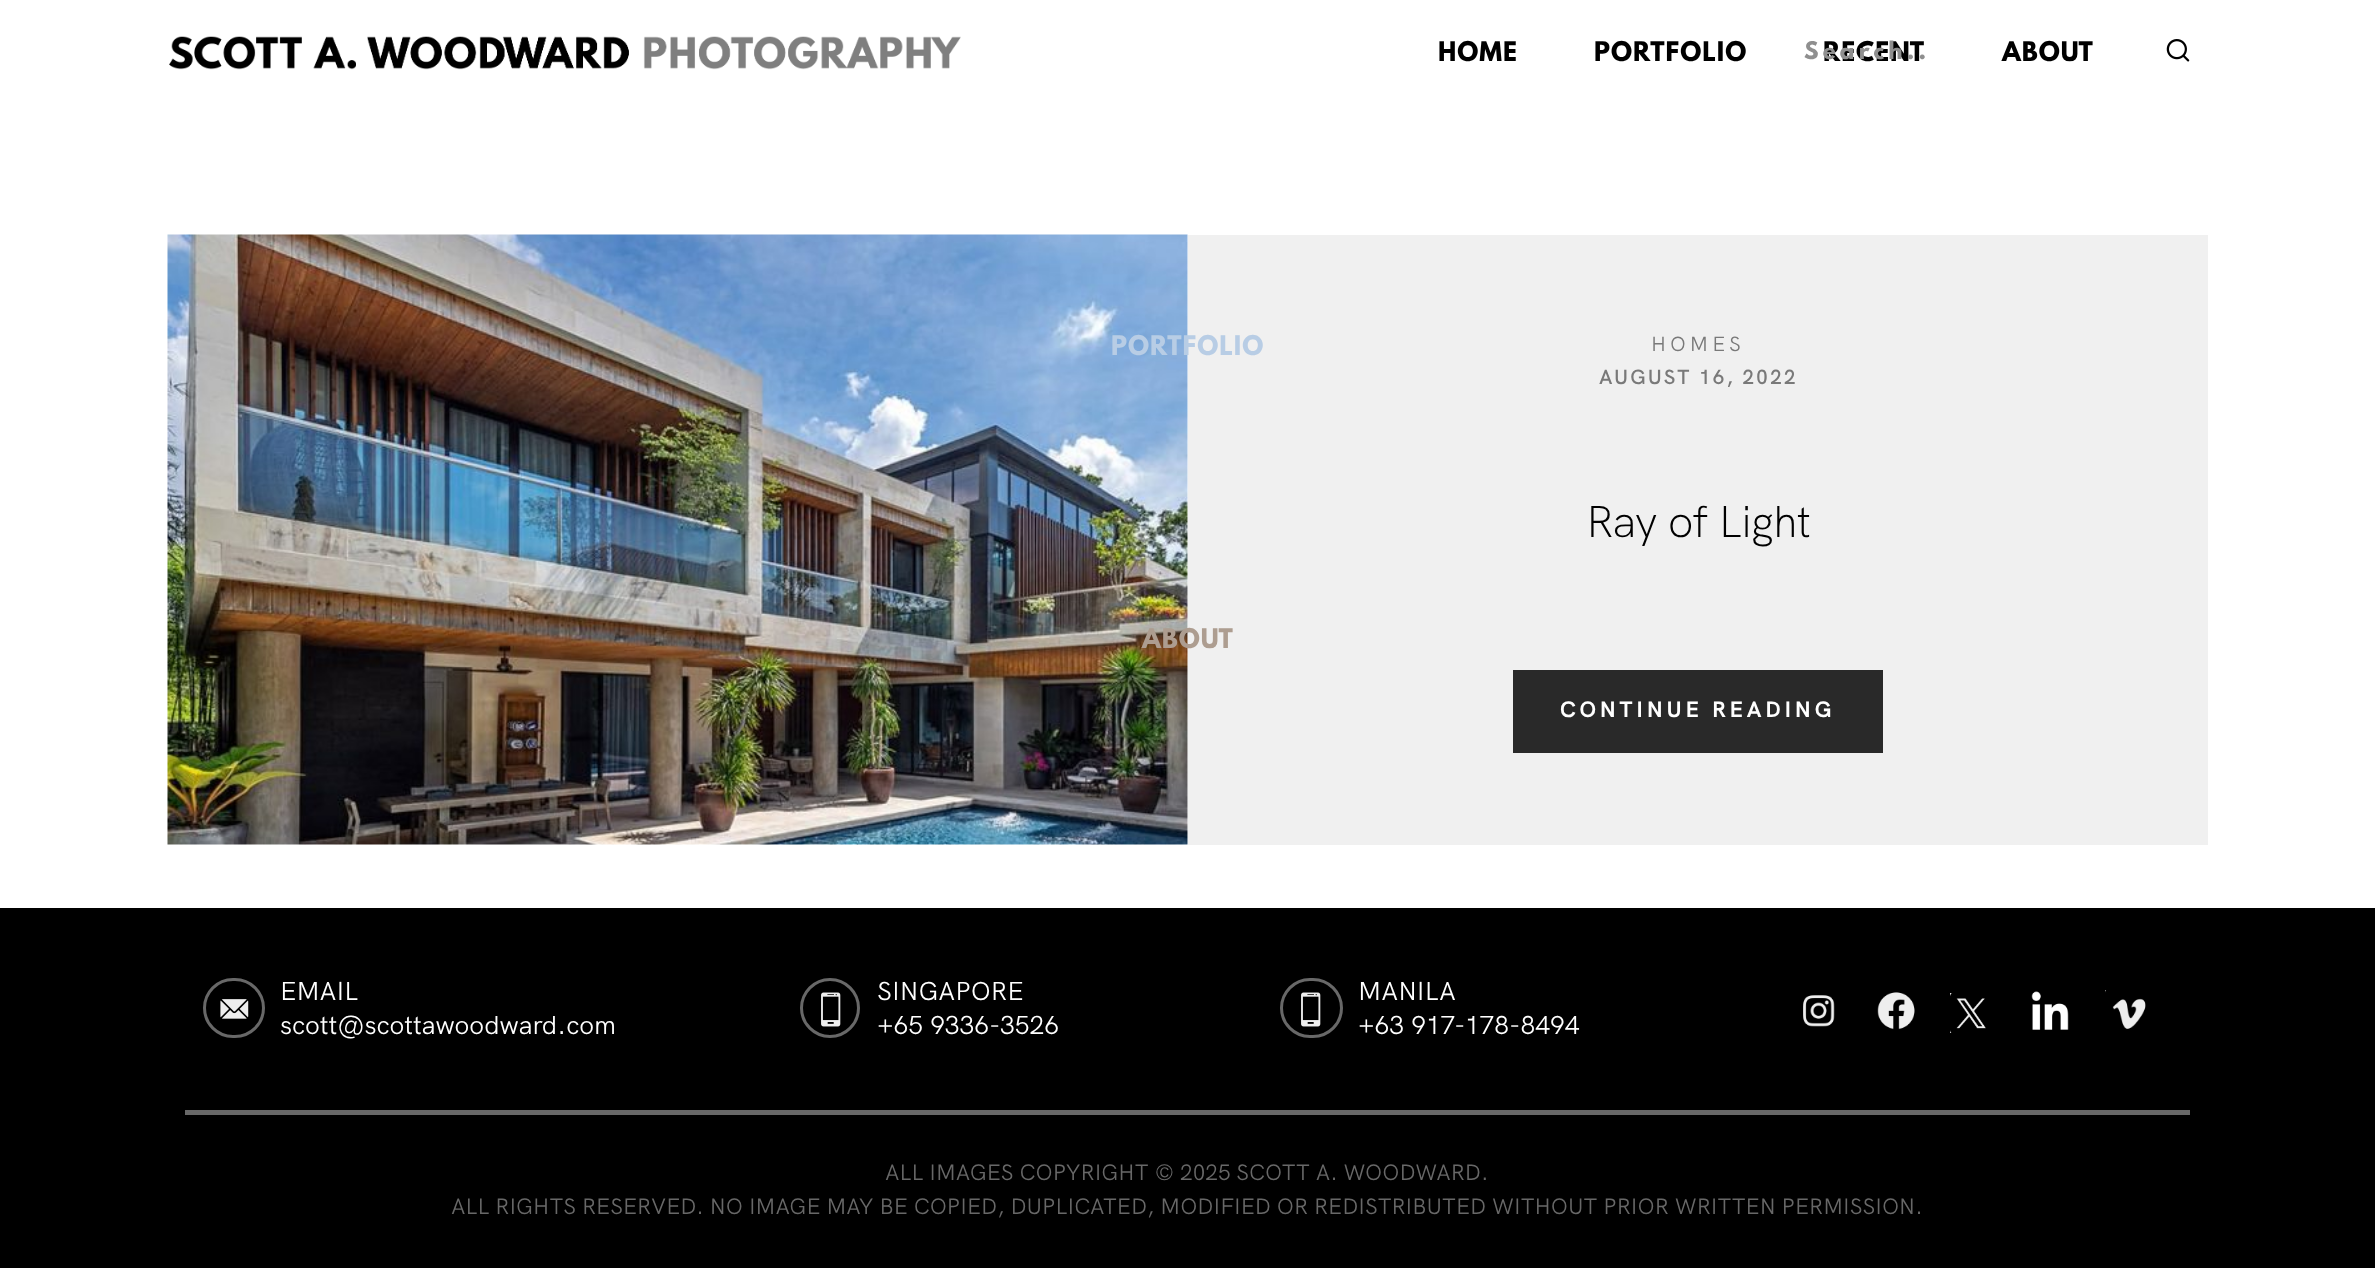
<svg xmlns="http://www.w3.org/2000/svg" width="2375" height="1268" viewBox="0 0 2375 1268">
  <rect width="100%" height="100%" fill="#ffffff"/>
  <image x="169" y="36" width="792" height="34" href="img1.png"/>
  <text x="1438" y="61" font-family="League Spartan" font-size="24" font-weight="bold" letter-spacing="1" fill="#000000">HOME</text>
  <text x="1594" y="61" font-family="League Spartan" font-size="24" font-weight="bold" letter-spacing="1" fill="#000000">PORTFOLIO</text>
  <text x="1823" y="61" font-family="League Spartan" font-size="24" font-weight="bold" letter-spacing="1" fill="#000000">RECENT</text>
  <text x="2002" y="61" font-family="League Spartan" font-size="24" font-weight="bold" letter-spacing="1" fill="#000000">ABOUT</text>
  <text x="1804" y="59" font-family="League Spartan" font-size="21.5" font-weight="bold" letter-spacing="4.25" fill="#8f8f8f">Search..</text>
  <image x="2166" y="39" width="24" height="23" href="img2.png"/>
  <image x="167" y="234" width="1021" height="611" href="img3.png"/>
  <rect x="1188" y="235" width="1020" height="610" fill="#f0f0f0"/>
  <text x="1651" y="351" font-family="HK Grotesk" font-size="20.5" letter-spacing="4" fill="#797979">HOMES</text>
  <text x="1599" y="384" font-family="HK Grotesk" font-size="20.5" font-weight="600" letter-spacing="2" fill="#797979">AUGUST 16, 2022</text>
  <text x="1586" y="537" font-family="HK Grotesk" font-size="44.5" font-weight="300" letter-spacing="-0.9" fill="#000000">Ray of Light</text>
  <rect x="1513" y="670" width="370" height="83" fill="#292929"/>
  <text x="1560" y="717" font-family="HK Grotesk" font-size="22.27" font-weight="bold" letter-spacing="3.75" fill="#ffffff">CONTINUE READING</text>
  <rect x="0" y="908" width="2375" height="360" fill="#000000"/>
  <image x="220" y="999" width="29" height="20" href="img9.png"/>
  <rect x="204.5" y="979.5" width="59" height="57" rx="28.5" fill="none" stroke="#686868" stroke-width="3"/>
  <text x="280" y="1000" font-family="HK Grotesk" font-size="26" fill="#ffffff">EMAIL</text>
  <image x="821" y="992" width="20" height="35" href="img6.png"/>
  <circle cx="830" cy="1008" r="28.5" fill="none" stroke="#686868" stroke-width="3"/>
  <text x="877" y="1000" font-family="HK Grotesk" font-size="26" fill="#ffffff">SINGAPORE</text>
  <image x="1301" y="992" width="20" height="35" href="img6.png"/>
  <rect x="1281.5" y="979.5" width="60" height="57" rx="28.5" fill="none" stroke="#686868" stroke-width="3"/>
  <text x="1358" y="1000" font-family="HK Grotesk" font-size="26" fill="#ffffff">MANILA</text>
  <rect x="1803" y="995" width="32" height="32" fill="#eeeeee"/>
  <image x="1798" y="990" width="42" height="43" href="img4.png"/>
  <rect x="1877" y="992" width="38" height="38" fill="#eeeeee"/>
  <image x="1875" y="990" width="43" height="43" href="img5.png"/>
  <rect x="2105" y="990" width="41" height="39" fill="#eeeeee"/>
  <rect x="1950" y="993" width="36" height="40" fill="#eeeeee"/>
  <image x="2031" y="991" width="38" height="39" href="img7.png"/>
  <image x="2105" y="990" width="45" height="43" href="img8.png"/>
  <image x="1950" y="993" width="40" height="40" href="img10.png"/>
  <text x="280" y="1034" font-family="HK Grotesk" font-size="26" fill="#ffffff">scott@scottawoodward.com</text>
  <text x="877" y="1034" font-family="HK Grotesk" font-size="26" fill="#ffffff">+65 9336-3526</text>
  <text x="1358" y="1034" font-family="HK Grotesk" font-size="26" fill="#ffffff">+63 917-178-8494</text>
  <rect x="185" y="1110" width="2005" height="5" fill="#686868"/>
  <text x="885" y="1180" word-spacing="-0.25" font-family="HK Grotesk" font-size="22.27" fill="#686868">ALL IMAGES COPYRIGHT © 2025 SCOTT A. WOODWARD.</text>
  <text x="451" y="1214" word-spacing="-0.2" font-family="HK Grotesk" font-size="22.27" fill="#686868">ALL RIGHTS RESERVED. NO IMAGE MAY BE COPIED, DUPLICATED, MODIFIED OR REDISTRIBUTED WITHOUT PRIOR WRITTEN PERMISSION.</text>
  <text x="1111" y="355" font-family="League Spartan" font-size="24" font-weight="bold" letter-spacing="1" fill="#b8cde5">PORTFOLIO</text>
  <text x="1142" y="648" font-family="League Spartan" font-size="24" font-weight="bold" letter-spacing="1" fill="#ad9d90">ABOUT</text>
</svg>
